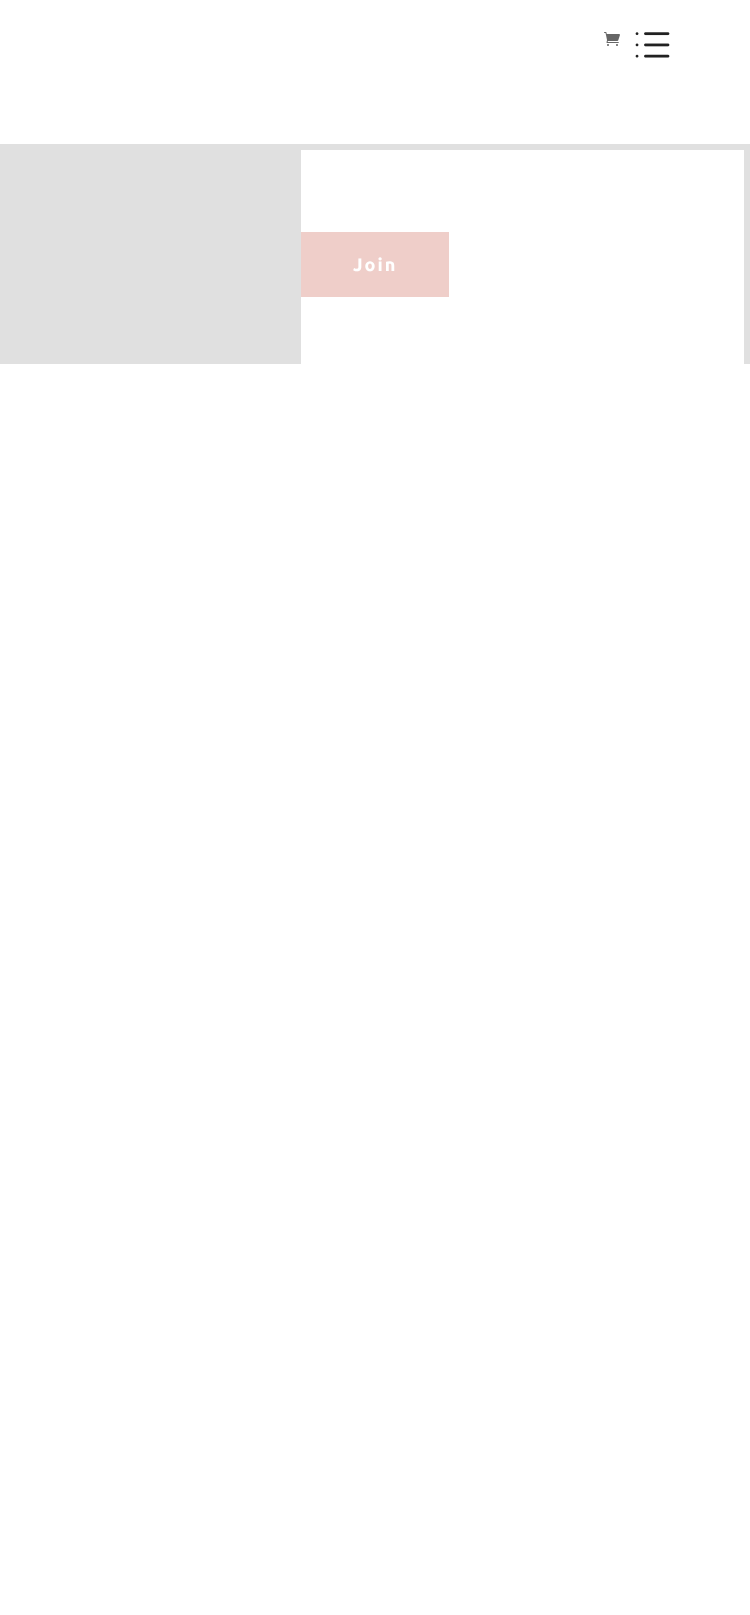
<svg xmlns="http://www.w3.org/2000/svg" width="750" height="1615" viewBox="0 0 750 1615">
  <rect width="100%" height="100%" fill="#ffffff"/>
  <image x="604" y="32" width="16" height="14" href="img1.png"/>
  <image x="635" y="32" width="35" height="26" href="img2.png"/>
  <rect x="6" y="150" width="295" height="214" fill="#e0e0e0"/>
  <rect x="0" y="144" width="750" height="6" fill="#e0e0e0"/>
  <rect x="744" y="144" width="6" height="220" fill="#e0e0e0"/>
  <rect x="0" y="144" width="6" height="220" fill="#e0e0e0"/>
  <rect x="301" y="232" width="148" height="65" fill="#efcec9"/>
  <text x="353" y="271" font-family="Ubuntu" font-size="18" font-weight="bold" letter-spacing="2" fill="#ffffff">Join</text>
</svg>
